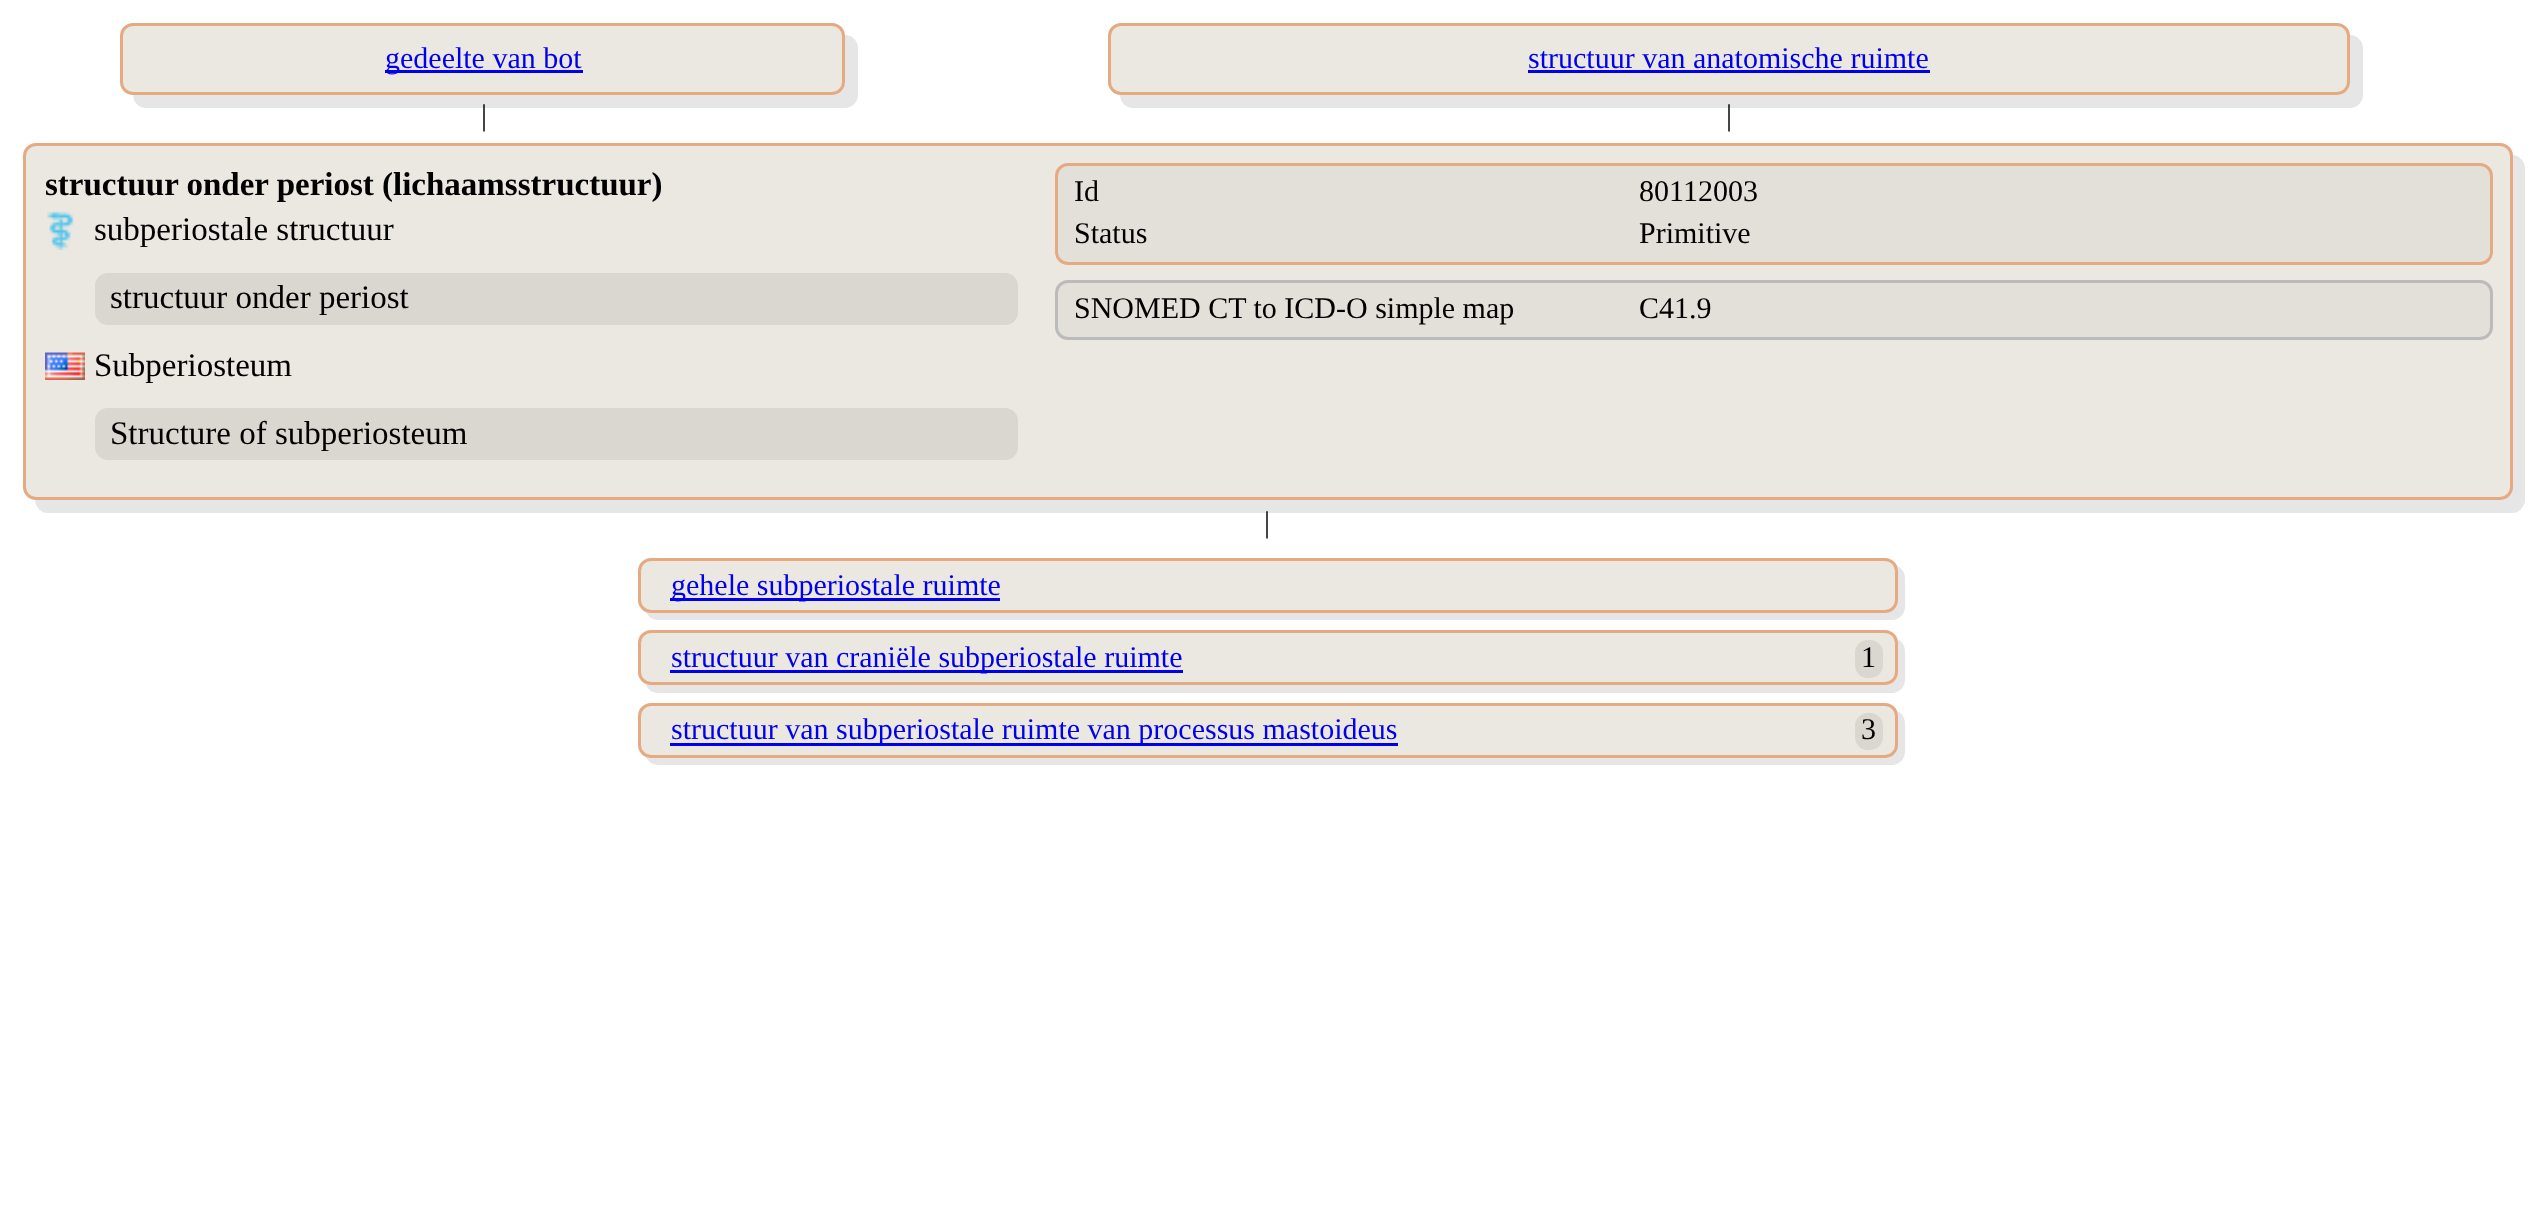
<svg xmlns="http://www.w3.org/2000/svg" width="2533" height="1210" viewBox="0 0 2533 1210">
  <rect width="100%" height="100%" fill="#ffffff"/>
  <path d="M133 95C133 102 139 108 146 108H845C852 108 858 102 858 95V48C858 41 852 35 845 35V82C845 89 839 95 832 95Z" fill="#e6e6e6"/>
  <rect x="121.5" y="24.5" width="722" height="69" rx="11.5" fill="#ebe7e1" stroke="#e6aa83" stroke-width="3"/>
  <rect x="385" y="70" width="198" height="3" fill="#0000ee"/>
  <text x="385" y="68" font-family="Liberation Serif" font-size="30" fill="#0000ee">gedeelte van bot</text>
  <path d="M1120 95C1120 102 1126 108 1133 108H2350C2357 108 2363 102 2363 95V48C2363 41 2357 35 2350 35V82C2350 89 2344 95 2338 95Z" fill="#e6e6e6"/>
  <rect x="1109.5" y="24.5" width="1239" height="69" rx="11.5" fill="#ebe7e1" stroke="#e6aa83" stroke-width="3"/>
  <text x="1528" y="68" font-family="Liberation Serif" font-size="30" fill="#0000ee">structuur van anatomische ruimte</text>
  <rect x="1528" y="70" width="402" height="3" fill="#0000ee"/>
  <text x="481" y="125" font-family="Liberation Serif" font-size="30" fill="#000000">|</text>
  <text x="1726" y="125" font-family="Liberation Serif" font-size="30" fill="#000000">|</text>
  <path d="M35 500C35 507 41 513 48 513H2512C2519 513 2525 507 2525 500V168C2525 161 2519 155 2512 155V488C2512 494 2507 500 2500 500Z" fill="#e6e6e6"/>
  <rect x="24.5" y="144.5" width="2487" height="354" rx="11.5" fill="#ebe7e1" stroke="#e6aa83" stroke-width="3"/>
  <text x="45" y="195" font-family="Liberation Serif" font-size="33" font-weight="bold" fill="#000000">structuur onder periost (lichaamsstructuur)</text>
  <image x="47" y="211" width="27" height="39" href="img1.png"/>
  <text x="94" y="240" font-family="Liberation Serif" font-size="33" fill="#000000">subperiostale structuur</text>
  <rect x="95" y="273" width="923" height="52" rx="13" fill="#dad6d0"/>
  <text x="110" y="308" font-family="Liberation Serif" font-size="33" fill="#000000">structuur onder periost</text>
  <image x="45" y="352" width="40" height="28" href="img2.png"/>
  <text x="94" y="376" font-family="Liberation Serif" font-size="33" fill="#000000">Subperiosteum</text>
  <rect x="95" y="408" width="923" height="52" rx="13" fill="#dad6d0"/>
  <text x="110" y="444" font-family="Liberation Serif" font-size="33" fill="#000000">Structure of subperiosteum</text>
  <rect x="1056.5" y="164.5" width="1435" height="99" rx="11.5" fill="#e3dfd9" stroke="#e6aa83" stroke-width="3"/>
  <text x="1074" y="201" font-family="Liberation Serif" font-size="30" fill="#000000">Id</text>
  <text x="1639" y="201" font-family="Liberation Serif" font-size="30" fill="#000000">80112003</text>
  <text x="1074" y="243" font-family="Liberation Serif" font-size="30" fill="#000000">Status</text>
  <text x="1639" y="243" font-family="Liberation Serif" font-size="30" fill="#000000">Primitive</text>
  <rect x="1056.5" y="281.5" width="1435" height="57" rx="11.5" fill="#e3dfd9" stroke="#bbbbbb" stroke-width="3"/>
  <text x="1074" y="318" font-family="Liberation Serif" font-size="30" fill="#000000">SNOMED CT to ICD-O simple map</text>
  <text x="1639" y="318" font-family="Liberation Serif" font-size="30" fill="#000000">C41.9</text>
  <text x="1264" y="532" font-family="Liberation Serif" font-size="30" fill="#000000">|</text>
  <path d="M646 612C648 617 653 620 658 620H1892C1899 620 1905 614 1905 607V578C1905 573 1902 568 1897 566L1898 570V600C1898 607 1892 612 1885 612H650Z" fill="#e6e6e6"/>
  <rect x="639.5" y="559.5" width="1257" height="52" rx="11.5" fill="#ebe7e1" stroke="#e6aa83" stroke-width="3"/>
  <rect x="670" y="598" width="330" height="3" fill="#0000ee"/>
  <text x="671" y="595" font-family="Liberation Serif" font-size="30" fill="#0000ee">gehele subperiostale ruimte</text>
  <path d="M646 684C647 689 652 693 658 693H1892C1899 693 1905 687 1905 680V651C1905 646 1902 641 1897 639L1898 642V672C1898 679 1892 685 1885 685H650Z" fill="#e6e6e6"/>
  <rect x="639.5" y="631.5" width="1257" height="52" rx="11.5" fill="#ebe7e1" stroke="#e6aa83" stroke-width="3"/>
  <rect x="670" y="670" width="513" height="3" fill="#0000ee"/>
  <text x="671" y="667" font-family="Liberation Serif" font-size="30" fill="#0000ee">structuur van craniële subperiostale ruimte</text>
  <rect x="1855" y="640" width="28" height="38" rx="13" fill="#dad6d0"/>
  <text x="1861" y="667" font-family="Liberation Serif" font-size="30" fill="#000000">1</text>
  <path d="M646 757C648 762 653 765 658 765H1892C1899 765 1905 759 1905 752V723C1905 718 1902 713 1897 711L1898 715V745C1898 752 1892 758 1885 758H650Z" fill="#e6e6e6"/>
  <rect x="639.5" y="704.5" width="1257" height="52" rx="11.5" fill="#ebe7e1" stroke="#e6aa83" stroke-width="3"/>
  <rect x="670" y="743" width="728" height="3" fill="#0000ee"/>
  <text x="671" y="739" font-family="Liberation Serif" font-size="30" fill="#0000ee">structuur van subperiostale ruimte van processus mastoideus</text>
  <rect x="1855" y="713" width="28" height="37" rx="13" fill="#dad6d0"/>
  <text x="1861" y="739" font-family="Liberation Serif" font-size="30" fill="#000000">3</text>
</svg>
